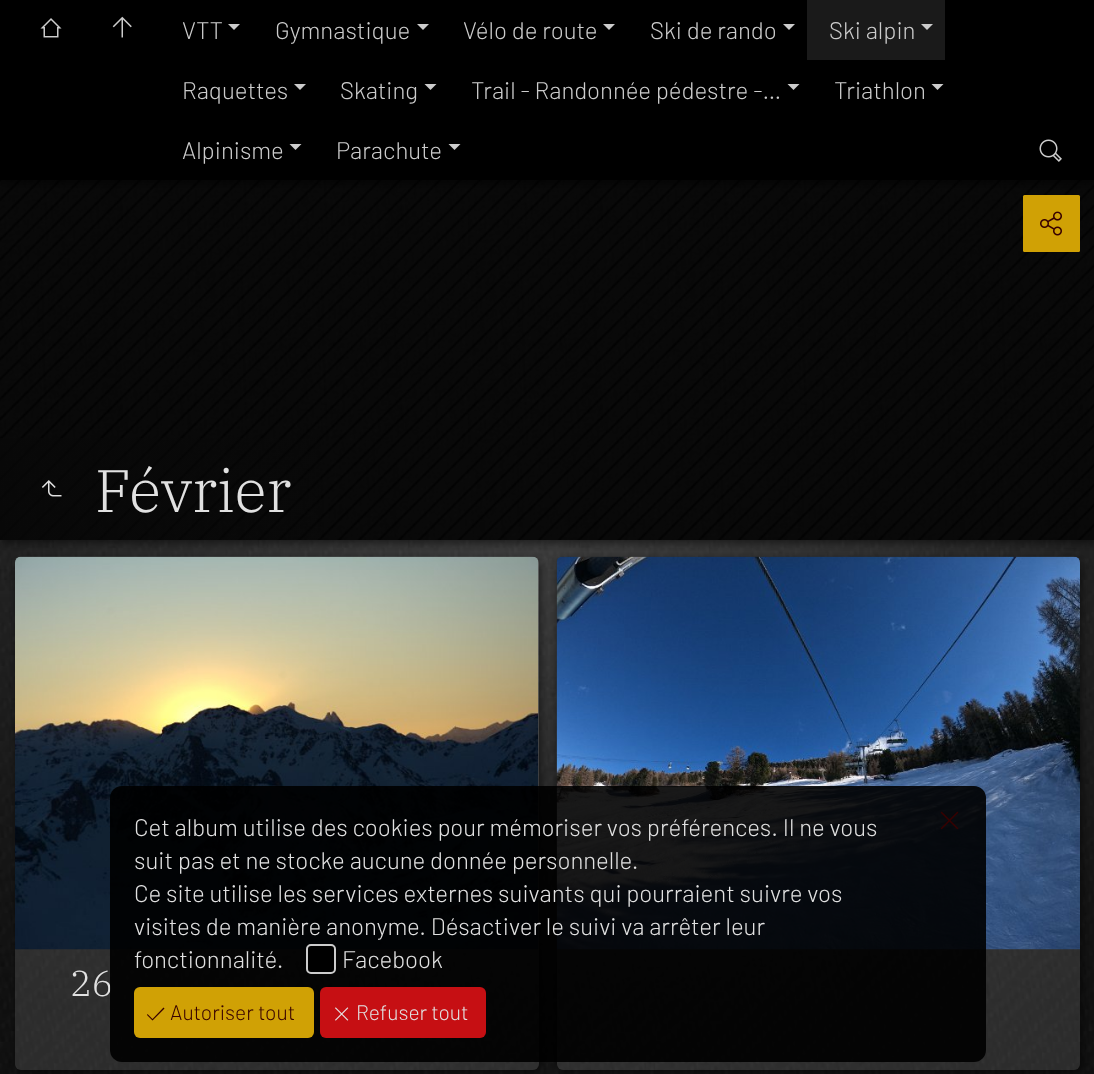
<svg xmlns="http://www.w3.org/2000/svg" width="1094" height="1074" viewBox="0 0 1094 1074">
  <defs>
    <filter id="blur1" x="-50%" y="-200%" width="200%" height="500%"><feGaussianBlur stdDeviation="4.5"/></filter>
    <linearGradient id="g1" gradientUnits="userSpaceOnUse" x1="0" y1="489" x2="321" y2="489"><stop offset="0" stop-color="#080808" stop-opacity="0.7"/><stop offset="0.6" stop-color="#080808" stop-opacity="0.45"/><stop offset="1" stop-color="#080808" stop-opacity="0.2"/></linearGradient>
    <clipPath id="clip1"><path d="M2 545H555V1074H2ZM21 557H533C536.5 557 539 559.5 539 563V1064C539 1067.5 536.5 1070 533 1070H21C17.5 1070 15 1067.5 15 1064V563C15 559.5 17.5 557 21 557Z" clip-rule="evenodd"/></clipPath>
    <clipPath id="clip2"><path d="M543 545H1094V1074H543ZM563 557H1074C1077.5 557 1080 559.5 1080 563V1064C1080 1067.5 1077.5 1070 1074 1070H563C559.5 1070 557 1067.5 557 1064V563C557 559.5 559.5 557 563 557Z" clip-rule="evenodd"/></clipPath>
  </defs>
  <rect width="100%" height="100%" fill="#ffffff"/>
  <image x="0" y="540" width="1094" height="534" href="img1.png"/>
  <rect x="2" y="183" width="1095" height="360" fill="#000000" fill-opacity="0.52" filter="url(#blur1)"/>
  <rect x="0" y="180" width="1094" height="360" fill="#000000"/>
  <image x="0" y="180" width="1094" height="360" href="img5.png"/>
  <rect x="1023" y="195" width="57" height="57" rx="1.5" fill="#d0a105"/>
  <rect x="2" y="3" width="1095" height="180" fill="#000000" fill-opacity="0.52" filter="url(#blur1)"/>
  <rect x="0" y="0" width="1094" height="180" fill="#000000"/>
  <image x="40" y="18" width="22" height="20" href="img2.png"/>
  <image x="112" y="16" width="20" height="22" href="img3.png"/>
  <text x="182" y="39" font-family="Barlow" font-size="24" font-weight="300" fill="#cccccc">VTT</text>
  <path d="M228 24H240L234 30Z" fill="#cccccc"/>
  <text x="275" y="39" font-family="Barlow" font-size="24" font-weight="300" fill="#cccccc">Gymnastique</text>
  <path d="M417 24H429L423 30Z" fill="#cccccc"/>
  <text x="463" y="39" font-family="Barlow" font-size="24" font-weight="300" fill="#cccccc">Vélo de route</text>
  <path d="M603 24H615L609 30Z" fill="#cccccc"/>
  <text x="650" y="39" font-family="Barlow" font-size="24" font-weight="300" fill="#cccccc">Ski de rando</text>
  <path d="M783 24H795L789 30Z" fill="#cccccc"/>
  <rect x="807" y="0" width="138" height="60" fill="#1a1a1a"/>
  <text x="829" y="39" font-family="Barlow" font-size="24" font-weight="300" fill="#cccccc">Ski alpin</text>
  <path d="M921 24H933L927 30Z" fill="#cccccc"/>
  <text x="182" y="99" font-family="Barlow" font-size="24" font-weight="300" fill="#cccccc">Raquettes</text>
  <path d="M294 84H306L300 90Z" fill="#cccccc"/>
  <text x="340" y="99" font-family="Barlow" font-size="24" font-weight="300" fill="#cccccc">Skating</text>
  <path d="M424.5 84H436.5L430.5 90Z" fill="#cccccc"/>
  <text x="471" y="99" font-family="Barlow" font-size="24" font-weight="300" fill="#cccccc">Trail - Randonnée pédestre -…</text>
  <path d="M787.5 84H799.5L793.5 90Z" fill="#cccccc"/>
  <text x="834" y="99" font-family="Barlow" font-size="24" font-weight="300" fill="#cccccc">Triathlon</text>
  <path d="M931.5 84H943.5L937.5 90Z" fill="#cccccc"/>
  <text x="182" y="159" font-family="Barlow" font-size="24" font-weight="300" fill="#cccccc">Alpinisme</text>
  <path d="M289.5 144H301.5L295.5 150Z" fill="#cccccc"/>
  <text x="336" y="159" font-family="Barlow" font-size="24" font-weight="300" fill="#cccccc">Parachute</text>
  <path d="M448.5 144H460.5L454.5 150Z" fill="#cccccc"/>
  <image x="1039" y="139" width="23" height="23" href="img4.png"/>
  <image x="1040" y="211" width="22" height="25" href="img6.png"/>
  <path d="M0 438H315C318.5 438 321 440.5 321 444V540H0Z" fill="url(#g1)"/>
  <image x="41" y="480" width="21" height="17" href="img7.png"/>
  <text x="95" y="512" font-family="IBM Plex Serif" font-size="60" font-weight="300" fill="#e1e1e1">Février</text>
  <g clip-path="url(#clip1)">
    <rect x="17" y="560" width="523" height="513" rx="6" fill="#000000" fill-opacity="0.52" filter="url(#blur1)"/>
  </g>
  <rect x="15" y="557" width="524" height="513" rx="6" fill="#eeeeee" fill-opacity="0.13"/>
  <image x="15" y="556" width="524" height="394" href="img8.png"/>
  <text x="70" y="996" font-family="IBM Plex Serif" font-size="36" font-weight="300" fill="#e1e1e1">26</text>
  <g clip-path="url(#clip2)">
    <rect x="558" y="560" width="524" height="513" rx="6" fill="#000000" fill-opacity="0.52" filter="url(#blur1)"/>
  </g>
  <rect x="557" y="557" width="523" height="513" rx="6" fill="#eeeeee" fill-opacity="0.13"/>
  <image x="556" y="556" width="524" height="394" href="img9.png"/>
  <rect x="110" y="786" width="876" height="276" rx="12" fill="#000000" fill-opacity="0.9"/>
  <text x="134" y="836" font-family="Barlow" font-size="24" font-weight="300" fill="#e1e1e1">Cet album utilise des cookies pour mémoriser vos préférences. Il ne vous</text>
  <text x="134" y="869" font-family="Barlow" font-size="24" font-weight="300" fill="#e1e1e1">suit pas et ne stocke aucune donnée personnelle.</text>
  <text x="134" y="902" font-family="Barlow" font-size="24" font-weight="300" fill="#e1e1e1">Ce site utilise les services externes suivants qui pourraient suivre vos</text>
  <text x="134" y="935" font-family="Barlow" font-size="24" font-weight="300" fill="#e1e1e1">visites de manière anonyme. Désactiver le suivi va arrêter leur</text>
  <text x="134" y="968" font-family="Barlow" font-size="24" font-weight="300" fill="#e1e1e1">fonctionnalité.</text>
  <rect x="307" y="945" width="28" height="28" rx="4" fill="#000000" stroke="#cccccc" stroke-width="2"/>
  <text x="342" y="968" font-family="Barlow" font-size="24" font-weight="300" fill="#e1e1e1">Facebook</text>
  <image x="940" y="811" width="19" height="19" href="img10.png"/>
  <rect x="134" y="987" width="180" height="51" rx="6" fill="#d0a105"/>
  <path d="M163.5 1007.5L152.5 1019L147.5 1014L147 1015L152.5 1020.5L164.5 1008.5Z" fill="#370000"/>
  <text x="170" y="1020" font-family="Barlow" font-size="21" font-weight="300" fill="#370000">Autoriser tout</text>
  <rect x="320" y="987" width="166" height="51" rx="6" fill="#c60f13"/>
  <image x="335" y="1007" width="14" height="14" href="img11.png"/>
  <text x="356" y="1020" font-family="Barlow" font-size="21" font-weight="300" fill="#e1e1e1">Refuser tout</text>
</svg>
